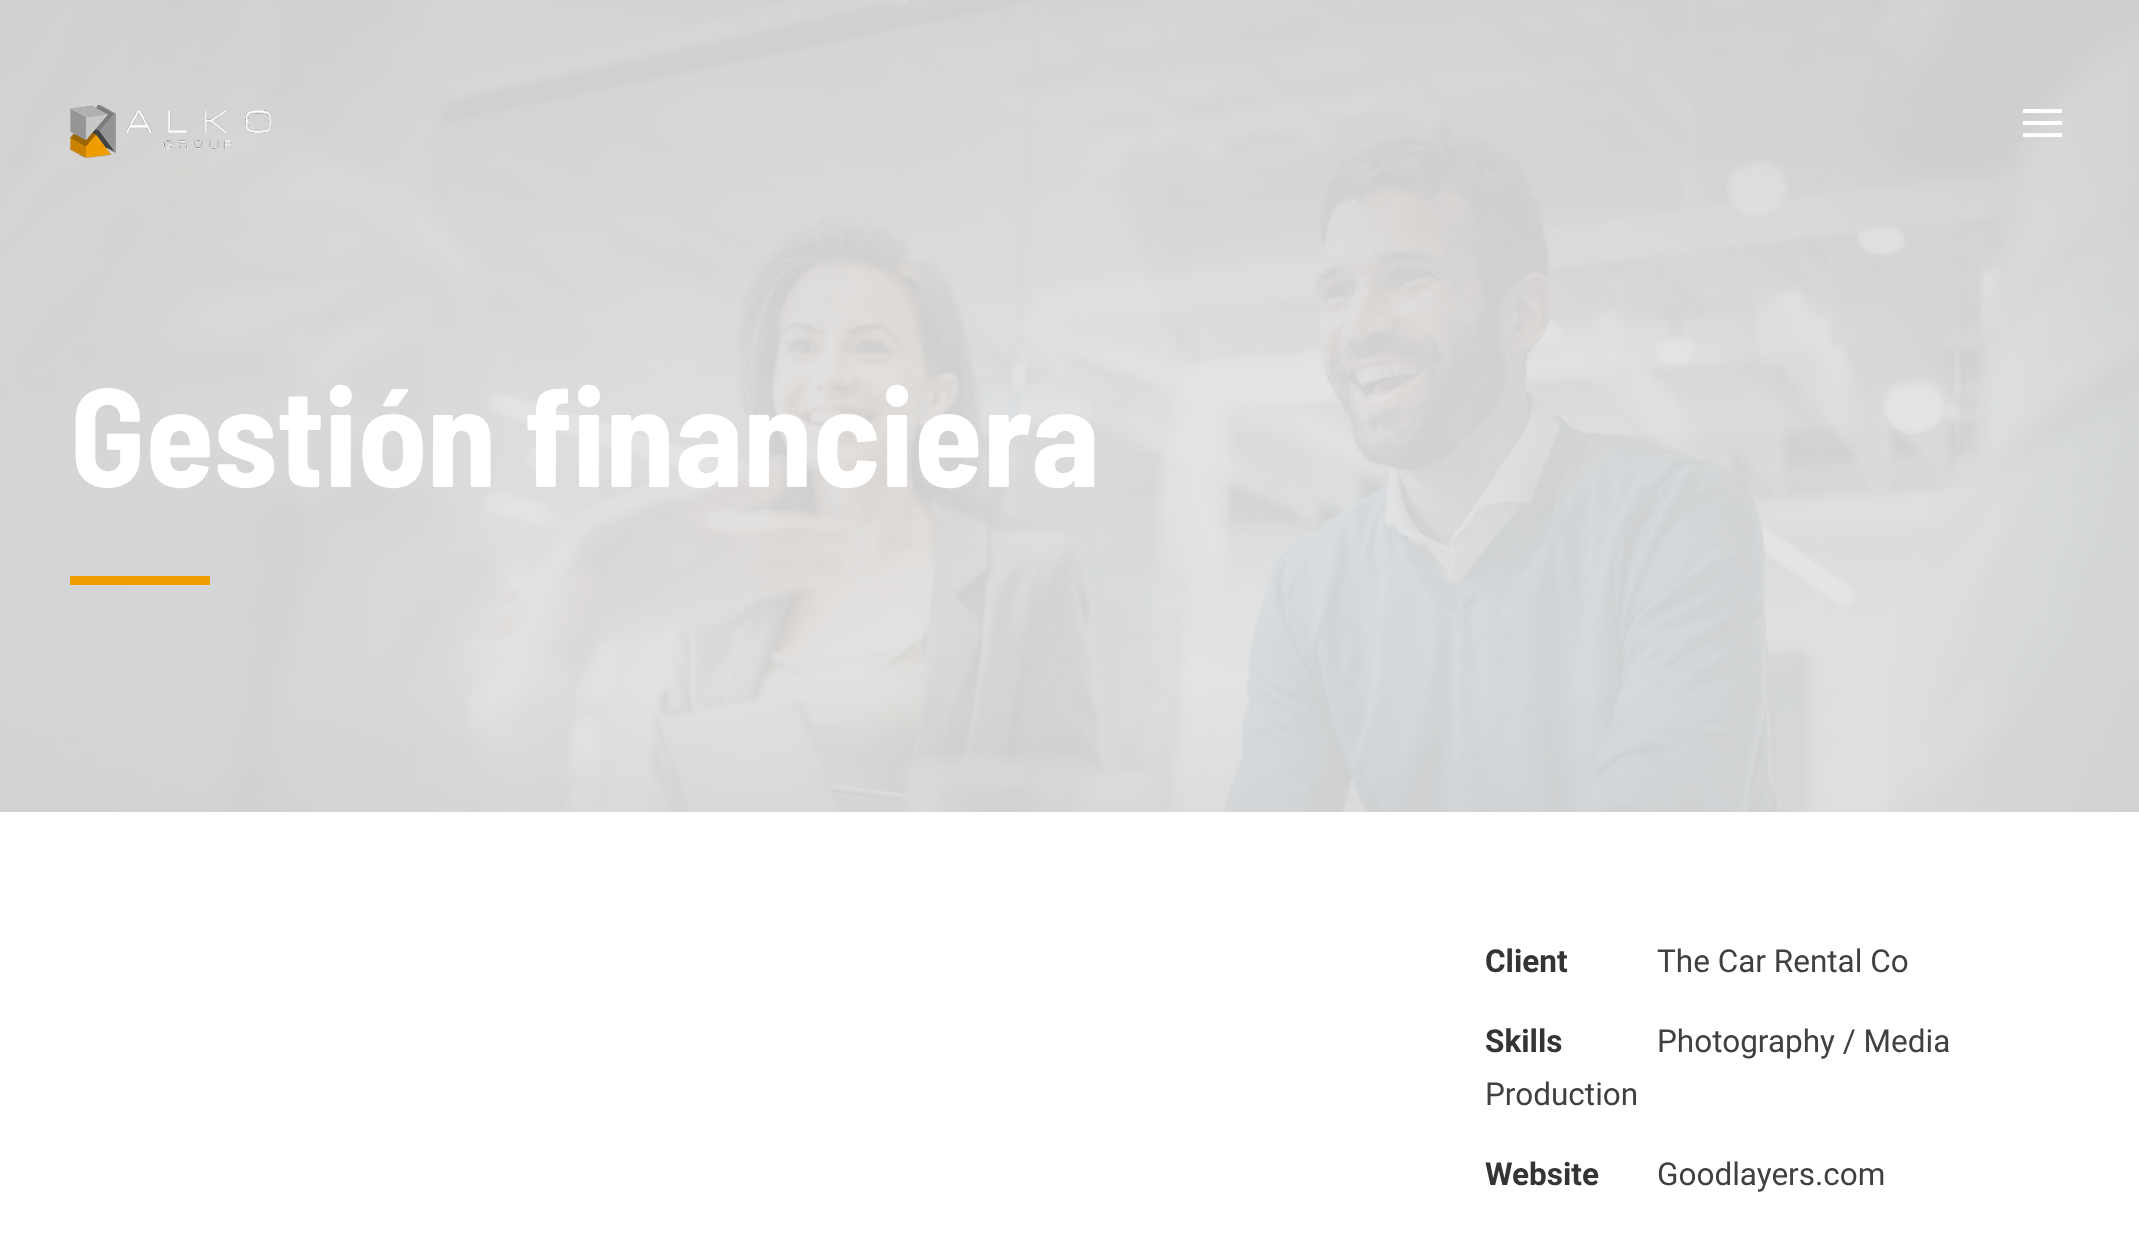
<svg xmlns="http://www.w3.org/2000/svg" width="2139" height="1253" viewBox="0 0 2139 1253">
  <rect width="100%" height="100%" fill="#ffffff"/>
  <image x="0" y="0" width="2139" height="812" href="img2.png"/>
  <image x="70" y="105" width="202" height="53" href="img1.png"/>
  <rect x="2023" y="109" width="39" height="4" fill="#ffffff"/>
  <rect x="2023" y="121" width="39" height="4" fill="#ffffff"/>
  <rect x="2023" y="133" width="39" height="4" fill="#ffffff"/>
  <text x="70" y="487" font-family="Barlow Semi Condensed" font-size="140" font-weight="bold" fill="#ffffff">Gestión financiera</text>
  <rect x="70" y="576" width="140" height="9" fill="#f09d00"/>
  <text x="1485" y="972" font-family="Roboto" font-size="31.5" font-weight="bold" fill="#343434">Client</text>
  <text x="1657" y="972" font-family="Roboto" font-size="31.5" fill="#3f403f">The Car Rental Co</text>
  <text x="1485" y="1052" font-family="Roboto" font-size="31.5" font-weight="bold" fill="#343434">Skills</text>
  <text x="1657" y="1052" font-family="Roboto" font-size="31.5" fill="#3f403f">Photography / Media</text>
  <text x="1485" y="1105" font-family="Roboto" font-size="31.5" fill="#3f403f">Production</text>
  <text x="1485" y="1185" font-family="Roboto" font-size="31.5" font-weight="bold" fill="#343434">Website</text>
  <text x="1657" y="1185" font-family="Roboto" font-size="31.5" fill="#3f403f">Goodlayers.com</text>
</svg>
